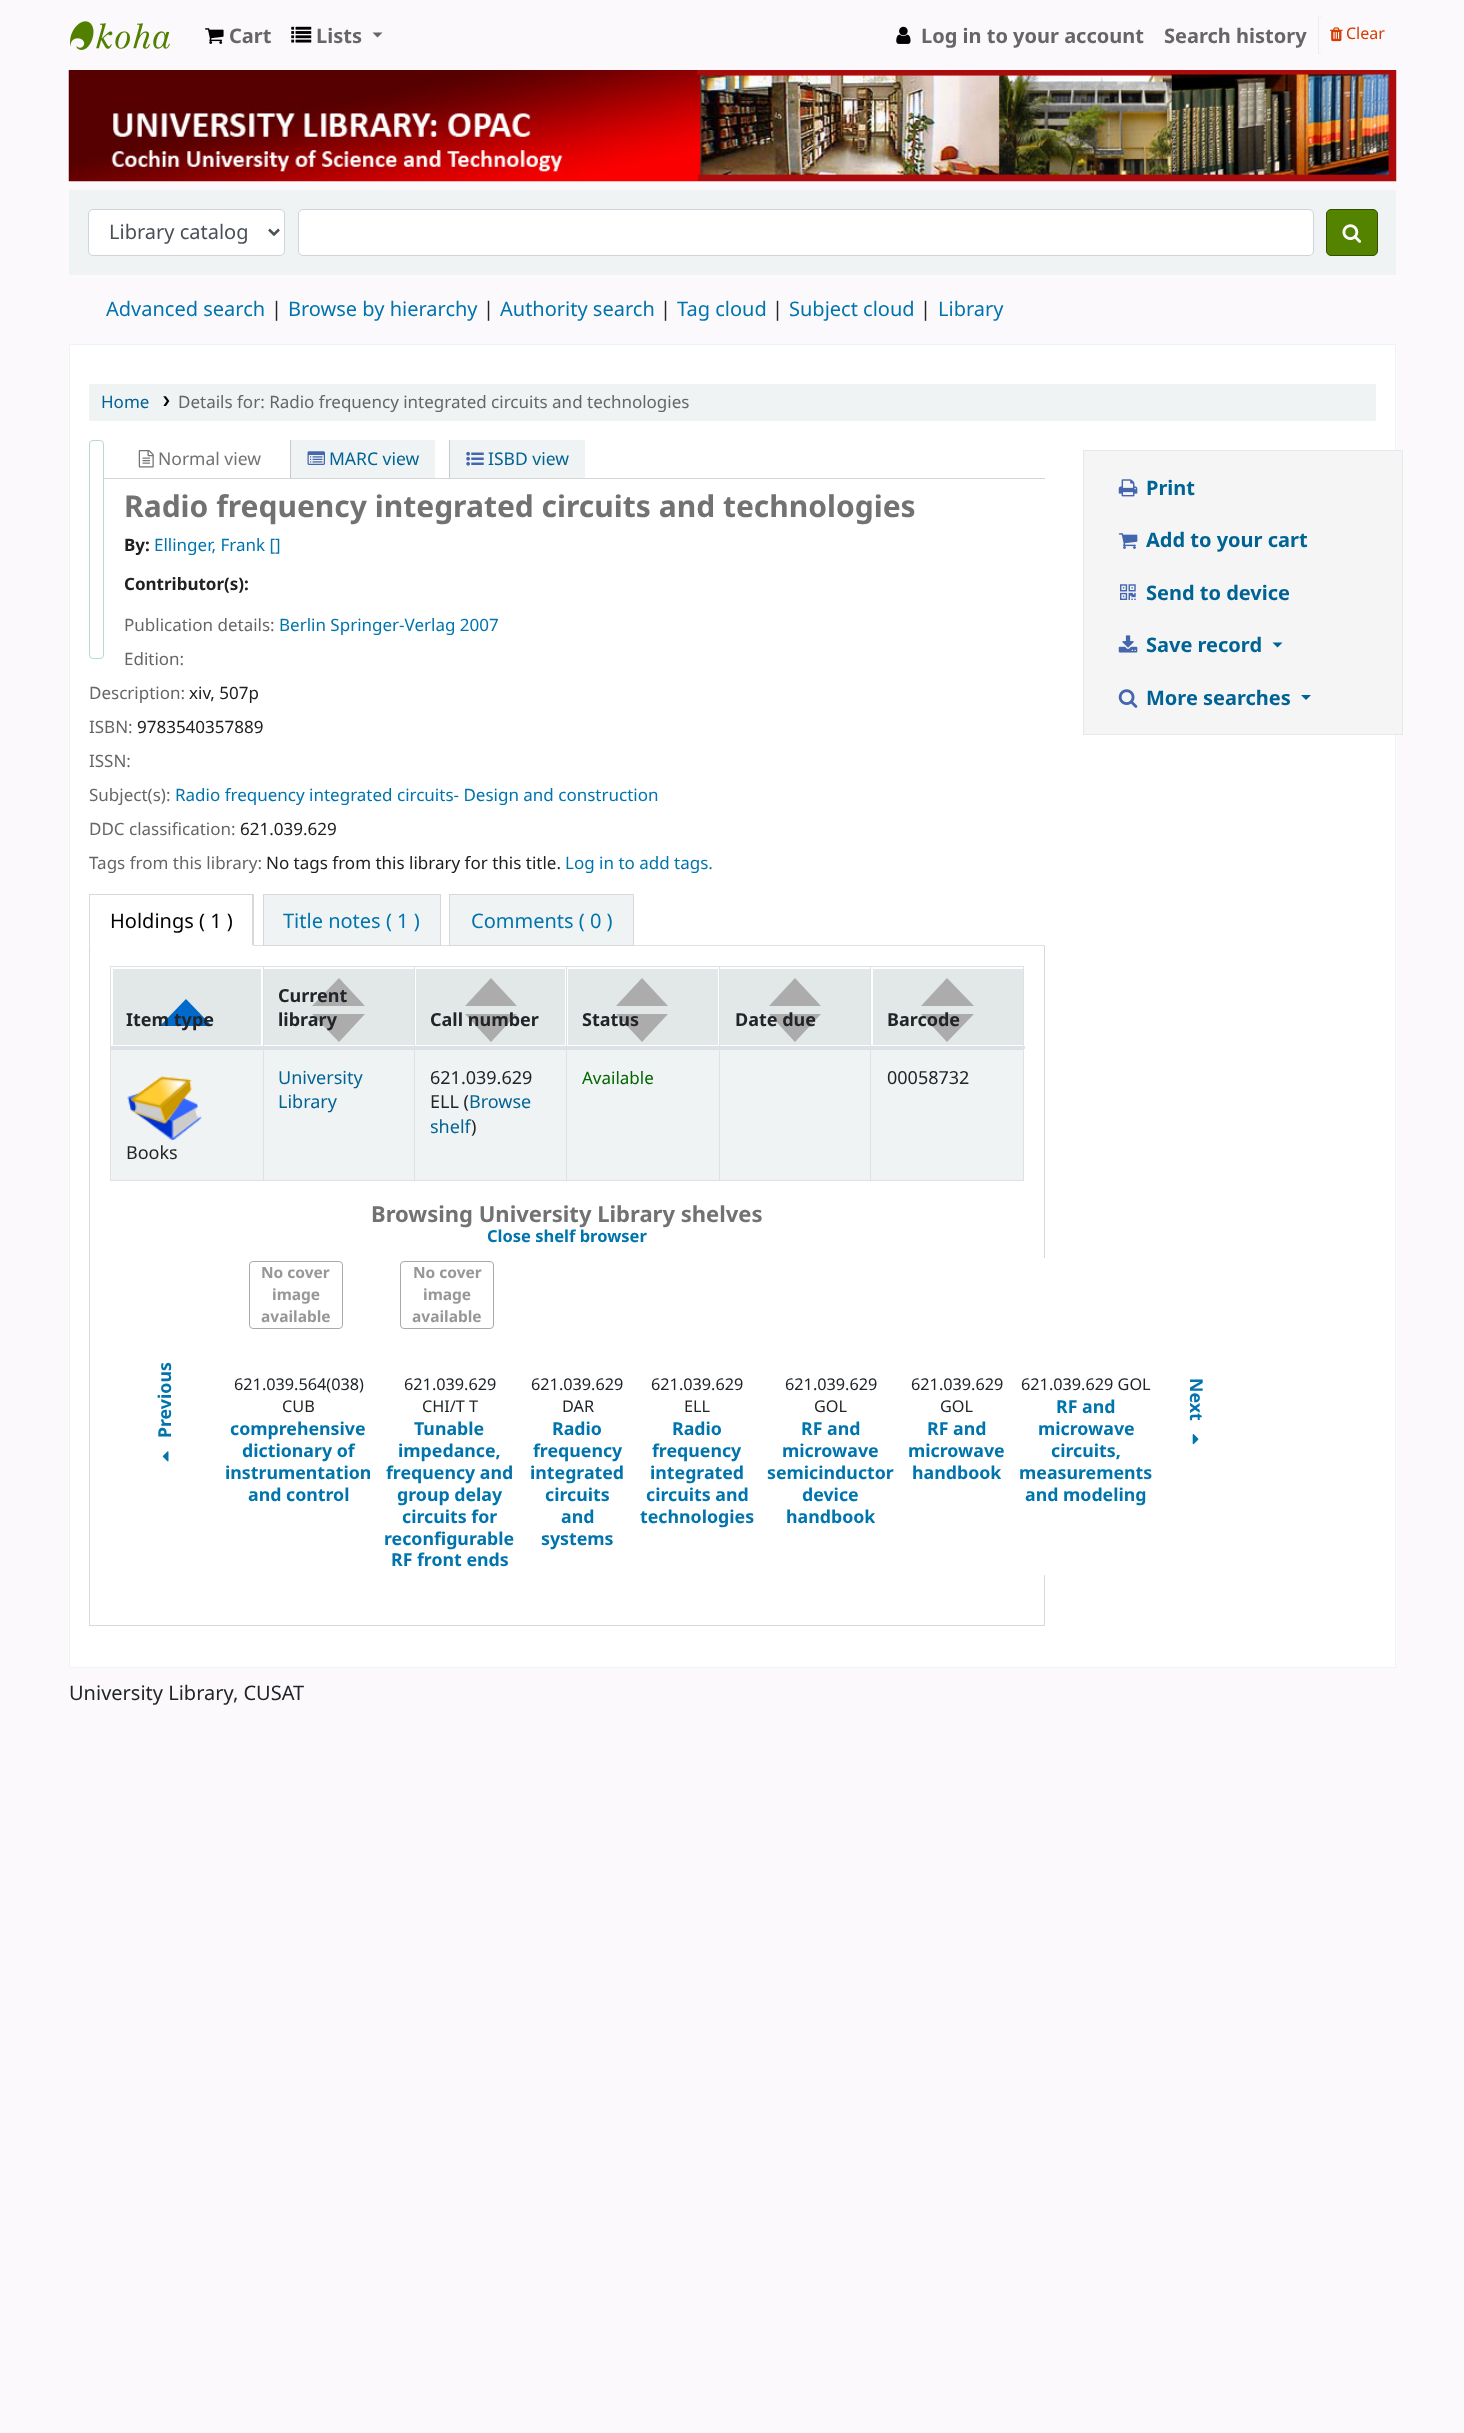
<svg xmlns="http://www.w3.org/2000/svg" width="1464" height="2433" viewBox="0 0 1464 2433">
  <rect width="100%" height="100%" fill="#fcf9fc"/>
  <image x="70" y="21" width="100" height="29" href="img1.png"/>
  <image x="205" y="28" width="19" height="16" href="img2.png"/>
  <text x="229" y="43" font-family="Noto Sans" font-size="20" font-weight="bold" fill="#666666">Cart</text>
  <image x="291" y="26" width="21" height="17" href="img3.png"/>
  <text x="316" y="43" font-family="Noto Sans" font-size="20" font-weight="bold" fill="#666666">Lists</text>
  <path d="M372.5 32.5H382.5L377.5 37.5Z" fill="#666666"/>
  <image x="896" y="26" width="15" height="18" href="img4.png"/>
  <text x="921" y="43" font-family="Noto Sans" font-size="20" font-weight="bold" fill="#666666">Log in to your account</text>
  <text x="1164" y="43" font-family="Noto Sans" font-size="20" font-weight="bold" fill="#666666">Search history</text>
  <rect x="1318" y="16" width="3" height="1" fill="#eeeeee"/>
  <rect x="1319" y="16" width="1" height="1" fill="#fcf9fc"/>
  <rect x="1318" y="53" width="3" height="1" fill="#eeeeee"/>
  <rect x="1318" y="16" width="1" height="38" fill="#eeeeee"/>
  <image x="1330" y="27" width="13" height="15" href="img5.png"/>
  <text x="1346" y="39" font-family="Noto Sans" font-size="16" fill="#d43c00">Clear</text>
  <image x="68" y="70" width="1329" height="112" href="img6.png"/>
  <rect x="69" y="190" width="1327" height="85" fill="#f0f3f3"/>
  <rect x="88.5" y="209.5" width="196" height="46" rx="4.5" fill="#ffffff" stroke="#ced4da"/>
  <path d="M269 229.5L274 234.5L279 229.5" fill="none" stroke="#495057" stroke-width="2.5"/>
  <text x="109" y="239" font-family="Noto Sans" font-size="20" fill="#495057">Library catalog</text>
  <rect x="298.5" y="209.5" width="1015" height="46" rx="4.5" fill="#ffffff" stroke="#ced4da"/>
  <rect x="1326.5" y="209.5" width="51" height="46" rx="4.5" fill="#548300" stroke="#335000"/>
  <image x="1342" y="224" width="20" height="19" href="img7.png"/>
  <text x="106" y="316" font-family="Noto Sans" font-size="20" fill="#0074ad">Advanced search</text>
  <text x="271" y="316" font-family="Noto Sans" font-size="20" fill="#212529">|</text>
  <text x="288" y="316" font-family="Noto Sans" font-size="20" fill="#0074ad">Browse by hierarchy</text>
  <text x="483" y="316" font-family="Noto Sans" font-size="20" fill="#212529">|</text>
  <text x="500" y="316" font-family="Noto Sans" font-size="20" fill="#0074ad">Authority search</text>
  <text x="660" y="316" font-family="Noto Sans" font-size="20" fill="#212529">|</text>
  <text x="677" y="316" font-family="Noto Sans" font-size="20" fill="#0074ad">Tag cloud</text>
  <text x="772" y="316" font-family="Noto Sans" font-size="20" fill="#212529">|</text>
  <text x="789" y="316" font-family="Noto Sans" font-size="20" fill="#0074ad">Subject cloud</text>
  <text x="920" y="316" font-family="Noto Sans" font-size="20" fill="#212529">|</text>
  <text x="938" y="316" font-family="Noto Sans" font-size="20" fill="#0074ad">Library</text>
  <rect x="69.5" y="344.5" width="1326" height="1323" fill="#ffffff" stroke="#f0f3f3"/>
  <rect x="89" y="384" width="1287" height="37" fill="#f0f3f3"/>
  <text x="101" y="408" font-family="Noto Sans" font-size="17" fill="#006394">Home</text>
  <image x="163" y="396" width="7" height="10" href="img8.png"/>
  <text x="178" y="408" font-family="Noto Sans" font-size="17" fill="#666666">Details for: Radio frequency integrated circuits and technologies</text>
  <rect x="89.5" y="440.5" width="14" height="218" rx="3.5" fill="none" stroke="#b9d8d9"/>
  <rect x="104" y="478" width="941" height="1" fill="#d6d6d6"/>
  <image x="138" y="450" width="16" height="18" href="img9.png"/>
  <text x="158" y="465" font-family="Noto Sans" font-size="17.5" fill="#727272">Normal view</text>
  <rect x="291" y="440" width="144" height="38" fill="#f0f3f3"/>
  <rect x="290" y="440" width="1" height="38" fill="#c9c9c9"/>
  <image x="307" y="451" width="18" height="14" href="img10.png"/>
  <text x="329" y="465" font-family="Noto Sans" font-size="17.5" fill="#006394">MARC view</text>
  <rect x="450" y="440" width="135" height="38" fill="#f0f3f3"/>
  <rect x="449" y="440" width="1" height="38" fill="#c9c9c9"/>
  <image x="466" y="451" width="18" height="15" href="img11.png"/>
  <text x="488" y="465" font-family="Noto Sans" font-size="17.5" fill="#006394">ISBD view</text>
  <text x="124" y="517" font-family="Noto Sans" font-size="30" font-weight="bold" fill="#727272">Radio frequency integrated circuits and technologies</text>
  <text x="124" y="551" font-family="Noto Sans" font-size="17" font-weight="bold" fill="#202020">By:</text>
  <text x="154" y="551" font-family="Noto Sans" font-size="17" fill="#0074ad">Ellinger, Frank []</text>
  <text x="124" y="590" font-family="Noto Sans" font-size="17" font-weight="bold" fill="#202020">Contributor(s):</text>
  <text x="124" y="631" font-family="Noto Sans" font-size="17" fill="#666666">Publication details:</text>
  <text x="279" y="631" font-family="Noto Sans" font-size="17" fill="#0074ad">Berlin Springer-Verlag 2007</text>
  <text x="124" y="665" font-family="Noto Sans" font-size="17" fill="#666666">Edition:</text>
  <text x="89" y="699" font-family="Noto Sans" font-size="17" fill="#666666">Description:</text>
  <text x="189" y="699" font-family="Noto Sans" font-size="17" fill="#202020">xiv, 507p</text>
  <text x="89" y="733" font-family="Noto Sans" font-size="17" fill="#666666">ISBN:</text>
  <text x="137" y="733" font-family="Noto Sans" font-size="17" fill="#202020">9783540357889</text>
  <text x="89" y="767" font-family="Noto Sans" font-size="17" fill="#666666">ISSN:</text>
  <text x="89" y="801" font-family="Noto Sans" font-size="17" fill="#666666">Subject(s):</text>
  <text x="175" y="801" font-family="Noto Sans" font-size="17" fill="#0074ad">Radio frequency integrated circuits- Design and construction</text>
  <text x="89" y="835" font-family="Noto Sans" font-size="17" fill="#666666">DDC classification:</text>
  <text x="240" y="835" font-family="Noto Sans" font-size="17" fill="#202020">621.039.629</text>
  <text x="89" y="869" font-family="Noto Sans" font-size="17" fill="#666666">Tags from this library:</text>
  <text x="266" y="869" font-family="Noto Sans" font-size="17" fill="#202020">No tags from this library for this title.</text>
  <text x="565" y="869" font-family="Noto Sans" font-size="17" fill="#0074ad">Log in to add tags.</text>
  <rect x="254" y="945" width="791" height="1" fill="#dee2e6"/>
  <rect x="89" y="894" width="165" height="1" fill="#d8d8d8"/>
  <path d="M254 894V946L252 945V895Z" fill="#d8d8d8"/>
  <path d="M89 946V894L90 895V945Z" fill="#d8d8d8"/>
  <text x="110" y="928" font-family="Noto Sans" font-size="20" fill="#000000">Holdings ( 1 )</text>
  <rect x="263.5" y="894.5" width="177" height="51" fill="#f0f3f3" stroke="#d8d8d8"/>
  <text x="283" y="928" font-family="Noto Sans" font-size="20" fill="#0074ad">Title notes ( 1 )</text>
  <rect x="449.5" y="894.5" width="184" height="51" fill="#f0f3f3" stroke="#d8d8d8"/>
  <text x="471" y="928" font-family="Noto Sans" font-size="20" fill="#0074ad">Comments ( 0 )</text>
  <rect x="1044" y="946" width="1" height="680" fill="#d8d8d8"/>
  <rect x="89" y="1625" width="956" height="1" fill="#d8d8d8"/>
  <rect x="89" y="946" width="1" height="680" fill="#d8d8d8"/>
  <rect x="110" y="966" width="914" height="1" fill="#dee2e6"/>
  <rect x="1023" y="966" width="1" height="215" fill="#dee2e6"/>
  <rect x="110" y="1180" width="914" height="1" fill="#dee2e6"/>
  <rect x="110" y="966" width="1" height="215" fill="#dee2e6"/>
  <rect x="113" y="969" width="148" height="76" fill="#e2e8e8"/>
  <path d="M212 1026H160L186 999Z" fill="#006acc"/>
  <text x="126" y="1026" font-family="Noto Sans" font-size="18" font-weight="bold" fill="#212529">Item type</text>
  <rect x="264" y="969" width="150" height="76" fill="#e2e8e8"/>
  <path d="M365 1014H312L339 1042Z" fill="#acacac"/>
  <path d="M365 1006H312L339 978Z" fill="#acacac"/>
  <text x="278" y="1002" font-family="Noto Sans" font-size="18" font-weight="bold" fill="#212529">Current</text>
  <text x="278" y="1026" font-family="Noto Sans" font-size="18" font-weight="bold" fill="#212529">library</text>
  <rect x="416" y="969" width="149" height="76" fill="#e2e8e8"/>
  <path d="M517 1014H465L491 1042Z" fill="#acacac"/>
  <path d="M517 1006H465L491 978Z" fill="#acacac"/>
  <text x="430" y="1026" font-family="Noto Sans" font-size="18" font-weight="bold" fill="#212529">Call number</text>
  <rect x="568" y="969" width="150" height="76" fill="#e2e8e8"/>
  <path d="M668 1014H616L642 1042Z" fill="#acacac"/>
  <path d="M668 1006H616L642 978Z" fill="#acacac"/>
  <text x="582" y="1026" font-family="Noto Sans" font-size="18" font-weight="bold" fill="#212529">Status</text>
  <rect x="720" y="969" width="150" height="76" fill="#e2e8e8"/>
  <path d="M821 1014H769L795 1042Z" fill="#acacac"/>
  <path d="M821 1006H769L795 978Z" fill="#acacac"/>
  <text x="735" y="1026" font-family="Noto Sans" font-size="18" font-weight="bold" fill="#212529">Date due</text>
  <rect x="873" y="969" width="150" height="76" fill="#e2e8e8"/>
  <path d="M974 1014H921L947 1042Z" fill="#acacac"/>
  <path d="M974 1006H921L947 978Z" fill="#acacac"/>
  <rect x="870" y="1049" width="154" height="1" fill="#dee2e6"/>
  <rect x="870" y="966" width="1" height="215" fill="#dee2e6"/>
  <rect x="719" y="1049" width="152" height="1" fill="#dee2e6"/>
  <rect x="719" y="966" width="1" height="215" fill="#dee2e6"/>
  <rect x="566" y="1049" width="154" height="1" fill="#dee2e6"/>
  <rect x="566" y="966" width="1" height="215" fill="#dee2e6"/>
  <rect x="414" y="1049" width="154" height="1" fill="#dee2e6"/>
  <rect x="414" y="966" width="1" height="215" fill="#dee2e6"/>
  <rect x="263" y="1049" width="152" height="1" fill="#dee2e6"/>
  <rect x="263" y="966" width="1" height="215" fill="#dee2e6"/>
  <rect x="110" y="1046" width="915" height="3" fill="#dee2e6"/>
  <text x="887" y="1026" font-family="Noto Sans" font-size="18" font-weight="bold" fill="#212529">Barcode</text>
  <rect x="264" y="1050" width="150" height="130" fill="#f0f3f3"/>
  <text x="278" y="1084" font-family="Noto Sans" font-size="18" fill="#006394">University</text>
  <text x="278" y="1108" font-family="Noto Sans" font-size="18" fill="#006394">Library</text>
  <rect x="415" y="1050" width="151" height="130" fill="#f0f3f3"/>
  <text x="430" y="1084" font-family="Noto Sans" font-size="18" fill="#212529">621.039.629</text>
  <text x="430" y="1108" font-family="Noto Sans" font-size="18" fill="#212529">ELL (</text>
  <text x="469" y="1108" font-family="Noto Sans" font-size="18" fill="#006394">Browse</text>
  <text x="430" y="1133" font-family="Noto Sans" font-size="18" fill="#006394">shelf</text>
  <text x="471" y="1133" font-family="Noto Sans" font-size="18" fill="#212529">)</text>
  <rect x="567" y="1050" width="152" height="130" fill="#f0f3f3"/>
  <text x="582" y="1084" font-family="Noto Sans" font-size="17" fill="#006600">Available</text>
  <rect x="720" y="1050" width="150" height="130" fill="#f0f3f3"/>
  <rect x="871" y="1050" width="152" height="130" fill="#f0f3f3"/>
  <text x="887" y="1084" font-family="Noto Sans" font-size="18" fill="#212529">00058732</text>
  <rect x="111" y="1050" width="152" height="130" fill="#f0f3f3"/>
  <rect x="110" y="1049" width="154" height="1" fill="#dee2e6"/>
  <image x="127" y="1076" width="75" height="64" href="img12.png"/>
  <text x="126" y="1159" font-family="Noto Sans" font-size="18" fill="#212529">Books</text>
  <text x="371" y="1222" font-family="Noto Sans" font-size="22" font-weight="bold" fill="#727272">Browsing University Library shelves</text>
  <text x="487" y="1242" font-family="Noto Sans" font-size="16.5" font-weight="bold" fill="#0074ad">Close shelf browser</text>
  <rect x="1044" y="1258" width="1" height="317" fill="#ffffff"/>
  <rect x="249.5" y="1261.5" width="93" height="67" rx="3.5" fill="none" stroke="#aaaaaa"/>
  <text x="261" y="1278" font-family="Noto Sans" font-size="15.5" font-weight="bold" fill="#979797">No cover</text>
  <text x="272" y="1300" font-family="Noto Sans" font-size="15.5" font-weight="bold" fill="#979797">image</text>
  <text x="261" y="1322" font-family="Noto Sans" font-size="15.5" font-weight="bold" fill="#979797">available</text>
  <rect x="400.5" y="1261.5" width="93" height="67" rx="3.5" fill="none" stroke="#aaaaaa"/>
  <text x="413" y="1278" font-family="Noto Sans" font-size="15.5" font-weight="bold" fill="#979797">No cover</text>
  <text x="423" y="1300" font-family="Noto Sans" font-size="15.5" font-weight="bold" fill="#979797">image</text>
  <text x="412" y="1322" font-family="Noto Sans" font-size="15.5" font-weight="bold" fill="#979797">available</text>
  <text x="171" y="1438" transform="rotate(-90 171 1438)" font-family="Noto Sans" font-size="17.75" font-weight="bold" fill="#0074ad">Previous</text>
  <image x="162" y="1451" width="7" height="11" href="img13.png"/>
  <text x="1190" y="1378" transform="rotate(90 1190 1378)" font-family="Noto Sans" font-size="17.75" font-weight="bold" fill="#0074ad">Next</text>
  <image x="1192" y="1434" width="7" height="11" href="img14.png"/>
  <text x="234" y="1390" font-family="Noto Sans" font-size="16.25" fill="#212529">621.039.564(038)</text>
  <text x="282" y="1412" font-family="Noto Sans" font-size="16.25" fill="#212529">CUB</text>
  <text x="230" y="1435" font-family="Noto Sans" font-size="17.75" font-weight="bold" fill="#0074ad">comprehensive</text>
  <text x="242" y="1457" font-family="Noto Sans" font-size="17.75" font-weight="bold" fill="#0074ad">dictionary of</text>
  <text x="225" y="1479" font-family="Noto Sans" font-size="17.75" font-weight="bold" fill="#0074ad">instrumentation</text>
  <text x="248" y="1501" font-family="Noto Sans" font-size="17.75" font-weight="bold" fill="#0074ad">and control</text>
  <text x="404" y="1390" font-family="Noto Sans" font-size="16.25" fill="#212529">621.039.629</text>
  <text x="422" y="1412" font-family="Noto Sans" font-size="16.25" fill="#212529">CHI/T T</text>
  <text x="414" y="1435" font-family="Noto Sans" font-size="17.75" font-weight="bold" fill="#0074ad">Tunable</text>
  <text x="398" y="1457" font-family="Noto Sans" font-size="17.75" font-weight="bold" fill="#0074ad">impedance,</text>
  <text x="386" y="1479" font-family="Noto Sans" font-size="17.75" font-weight="bold" fill="#0074ad">frequency and</text>
  <text x="397" y="1501" font-family="Noto Sans" font-size="17.75" font-weight="bold" fill="#0074ad">group delay</text>
  <text x="402" y="1523" font-family="Noto Sans" font-size="17.75" font-weight="bold" fill="#0074ad">circuits for</text>
  <text x="384" y="1545" font-family="Noto Sans" font-size="17.75" font-weight="bold" fill="#0074ad">reconfigurable</text>
  <text x="391" y="1566" font-family="Noto Sans" font-size="17.75" font-weight="bold" fill="#0074ad">RF front ends</text>
  <text x="531" y="1390" font-family="Noto Sans" font-size="16.25" fill="#212529">621.039.629</text>
  <text x="562" y="1412" font-family="Noto Sans" font-size="16.25" fill="#212529">DAR</text>
  <text x="552" y="1435" font-family="Noto Sans" font-size="17.75" font-weight="bold" fill="#0074ad">Radio</text>
  <text x="533" y="1457" font-family="Noto Sans" font-size="17.75" font-weight="bold" fill="#0074ad">frequency</text>
  <text x="530" y="1479" font-family="Noto Sans" font-size="17.75" font-weight="bold" fill="#0074ad">integrated</text>
  <text x="545" y="1501" font-family="Noto Sans" font-size="17.75" font-weight="bold" fill="#0074ad">circuits</text>
  <text x="561" y="1523" font-family="Noto Sans" font-size="17.75" font-weight="bold" fill="#0074ad">and</text>
  <text x="541" y="1545" font-family="Noto Sans" font-size="17.75" font-weight="bold" fill="#0074ad">systems</text>
  <text x="651" y="1390" font-family="Noto Sans" font-size="16.25" fill="#212529">621.039.629</text>
  <text x="684" y="1412" font-family="Noto Sans" font-size="16.25" fill="#212529">ELL</text>
  <text x="672" y="1435" font-family="Noto Sans" font-size="17.75" font-weight="bold" fill="#0074ad">Radio</text>
  <text x="652" y="1457" font-family="Noto Sans" font-size="17.75" font-weight="bold" fill="#0074ad">frequency</text>
  <text x="650" y="1479" font-family="Noto Sans" font-size="17.75" font-weight="bold" fill="#0074ad">integrated</text>
  <text x="646" y="1501" font-family="Noto Sans" font-size="17.75" font-weight="bold" fill="#0074ad">circuits and</text>
  <text x="640" y="1523" font-family="Noto Sans" font-size="17.75" font-weight="bold" fill="#0074ad">technologies</text>
  <text x="785" y="1390" font-family="Noto Sans" font-size="16.25" fill="#212529">621.039.629</text>
  <text x="814" y="1412" font-family="Noto Sans" font-size="16.25" fill="#212529">GOL</text>
  <text x="801" y="1435" font-family="Noto Sans" font-size="17.75" font-weight="bold" fill="#0074ad">RF and</text>
  <text x="782" y="1457" font-family="Noto Sans" font-size="17.75" font-weight="bold" fill="#0074ad">microwave</text>
  <text x="767" y="1479" font-family="Noto Sans" font-size="17.75" font-weight="bold" fill="#0074ad">semicinductor</text>
  <text x="802" y="1501" font-family="Noto Sans" font-size="17.75" font-weight="bold" fill="#0074ad">device</text>
  <text x="786" y="1523" font-family="Noto Sans" font-size="17.75" font-weight="bold" fill="#0074ad">handbook</text>
  <text x="911" y="1390" font-family="Noto Sans" font-size="16.25" fill="#212529">621.039.629</text>
  <text x="940" y="1412" font-family="Noto Sans" font-size="16.25" fill="#212529">GOL</text>
  <text x="927" y="1435" font-family="Noto Sans" font-size="17.75" font-weight="bold" fill="#0074ad">RF and</text>
  <text x="908" y="1457" font-family="Noto Sans" font-size="17.75" font-weight="bold" fill="#0074ad">microwave</text>
  <text x="912" y="1479" font-family="Noto Sans" font-size="17.75" font-weight="bold" fill="#0074ad">handbook</text>
  <text x="1021" y="1390" font-family="Noto Sans" font-size="16.25" fill="#212529">621.039.629 GOL</text>
  <text x="1056" y="1413" font-family="Noto Sans" font-size="17.75" font-weight="bold" fill="#0074ad">RF and</text>
  <text x="1038" y="1435" font-family="Noto Sans" font-size="17.75" font-weight="bold" fill="#0074ad">microwave</text>
  <text x="1051" y="1457" font-family="Noto Sans" font-size="17.75" font-weight="bold" fill="#0074ad">circuits,</text>
  <text x="1019" y="1479" font-family="Noto Sans" font-size="17.75" font-weight="bold" fill="#0074ad">measurements</text>
  <text x="1025" y="1501" font-family="Noto Sans" font-size="17.75" font-weight="bold" fill="#0074ad">and modeling</text>
  <rect x="1083.5" y="450.5" width="319" height="284" fill="#f5f5f5" stroke="#e8e8e8"/>
  <image x="1118" y="479" width="20" height="18" href="img15.png"/>
  <text x="1146" y="495" font-family="Noto Sans" font-size="20" font-weight="bold" fill="#006394">Print</text>
  <image x="1118" y="533" width="20" height="16" href="img16.png"/>
  <text x="1146" y="547" font-family="Noto Sans" font-size="20" font-weight="bold" fill="#006394">Add to your cart</text>
  <image x="1120" y="584" width="16" height="16" href="img17.png"/>
  <text x="1146" y="600" font-family="Noto Sans" font-size="20" font-weight="bold" fill="#006394">Send to device</text>
  <image x="1118" y="635" width="20" height="18" href="img18.png"/>
  <text x="1146" y="652" font-family="Noto Sans" font-size="20" font-weight="bold" fill="#006394">Save record</text>
  <path d="M1272.5 642.5H1282.5L1277.5 647.5Z" fill="#006394"/>
  <image x="1118" y="689" width="20" height="19" href="img19.png"/>
  <text x="1146" y="705" font-family="Noto Sans" font-size="20" font-weight="bold" fill="#006394">More searches</text>
  <path d="M1301 695H1311L1306 700Z" fill="#006394"/>
  <text x="69" y="1700" font-family="Noto Sans" font-size="20" fill="#212529">University Library, CUSAT</text>
</svg>
